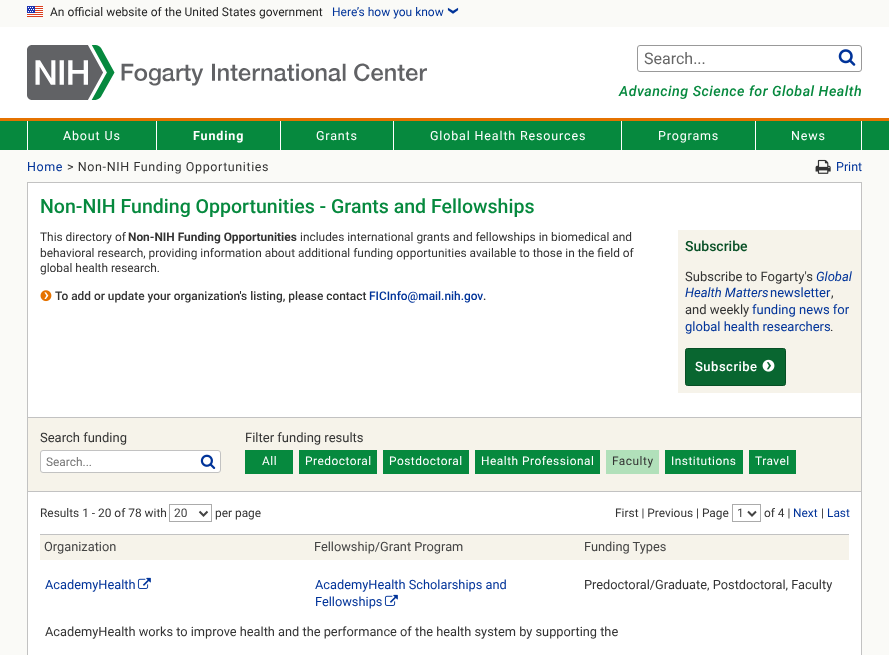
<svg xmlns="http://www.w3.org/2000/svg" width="889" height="655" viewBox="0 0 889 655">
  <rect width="100%" height="100%" fill="#fafaf7"/>
  <image x="27" y="6" width="16" height="11" href="img1.png"/>
  <text x="50" y="16" font-family="Roboto" font-size="12" fill="#252525">An official website of the United States government</text>
  <text x="332" y="16" font-family="Roboto" font-size="12" fill="#003399">Here’s how you know</text>
  <image x="447" y="7" width="12" height="7" href="img2.png"/>
  <rect x="0" y="27" width="889" height="91" fill="#ffffff"/>
  <image x="27" y="45" width="400" height="55" href="img3.png"/>
  <rect x="637.5" y="45.5" width="224" height="26" rx="2.5" fill="none" stroke="#999999"/>
  <text x="644" y="64" font-family="Roboto" font-size="16" fill="#666666">Search...</text>
  <image x="838" y="49" width="18" height="17" href="img4.png"/>
  <text x="619" y="96" font-family="Roboto" font-size="14.25" font-weight="500" font-style="italic" letter-spacing="0.5" fill="#06893e">Advancing Science for Global Health</text>
  <rect x="0" y="121" width="889" height="29" fill="#06893e"/>
  <rect x="0" y="118" width="889" height="3" fill="#e57200"/>
  <rect x="156" y="121" width="1" height="29" fill="#ffffff"/>
  <rect x="27" y="121" width="1" height="29" fill="#ffffff"/>
  <text x="63" y="140" font-family="Roboto" font-size="12.5" letter-spacing="0.85" fill="#ffffff">About Us</text>
  <rect x="280" y="121" width="1" height="29" fill="#ffffff"/>
  <text x="193" y="140" font-family="Roboto" font-size="12.5" font-weight="bold" letter-spacing="0.85" fill="#ffffff">Funding</text>
  <rect x="393" y="121" width="1" height="29" fill="#ffffff"/>
  <text x="316" y="140" font-family="Roboto" font-size="12.5" letter-spacing="0.85" fill="#ffffff">Grants</text>
  <rect x="621" y="121" width="1" height="29" fill="#ffffff"/>
  <text x="430" y="140" font-family="Roboto" font-size="12.5" letter-spacing="0.85" fill="#ffffff">Global Health Resources</text>
  <rect x="755" y="121" width="1" height="29" fill="#ffffff"/>
  <text x="658" y="140" font-family="Roboto" font-size="12.5" letter-spacing="0.85" fill="#ffffff">Programs</text>
  <rect x="861" y="121" width="1" height="29" fill="#ffffff"/>
  <text x="791" y="140" font-family="Roboto" font-size="12.5" letter-spacing="0.85" fill="#ffffff">News</text>
  <text x="27" y="171" font-family="Roboto" font-size="12.5" letter-spacing="0.6" fill="#003399">Home</text>
  <text x="67" y="171" font-family="Roboto" font-size="12.5" letter-spacing="0.6" fill="#333333">&gt; Non-NIH Funding Opportunities</text>
  <image x="815" y="159" width="16" height="15" href="img5.png"/>
  <text x="836" y="171" font-family="Roboto" font-size="12.5" fill="#003399">Print</text>
  <rect x="27.5" y="182.5" width="834" height="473" fill="#ffffff" stroke="#c2c2c2"/>
  <text x="40" y="213" font-family="Roboto" font-size="19.55" font-weight="500" fill="#06893e">Non-NIH Funding Opportunities - Grants and Fellowships</text>
  <text x="40" y="241" font-family="Roboto" font-size="11.9" fill="#333333">This directory of</text>
  <text x="128" y="241" font-family="Roboto" font-size="11.9" font-weight="bold" fill="#333333">Non-NIH Funding Opportunities</text>
  <text x="300" y="241" font-family="Roboto" font-size="11.9" fill="#333333">includes international grants and fellowships in biomedical and</text>
  <text x="40" y="257" font-family="Roboto" font-size="11.9" fill="#333333">behavioral research, providing information about additional funding opportunities available to those in the field of</text>
  <text x="40" y="272" font-family="Roboto" font-size="11.9" fill="#333333">global health research.</text>
  <rect x="678" y="230" width="183" height="163" fill="#f6f3ea"/>
  <text x="685" y="251" font-family="Roboto" font-size="14" font-weight="500" fill="#074f25">Subscribe</text>
  <text x="685" y="281" font-family="Roboto" font-size="13" fill="#333333">Subscribe to Fogarty's</text>
  <text x="816" y="281" font-family="Roboto" font-size="13" font-style="italic" fill="#003399">Global</text>
  <text x="685" y="297" font-family="Roboto" font-size="13" font-style="italic" fill="#003399">Health Matters</text>
  <text x="770" y="297" font-family="Roboto" font-size="13" fill="#003399">newsletter</text>
  <text x="831" y="297" font-family="Roboto" font-size="13" fill="#333333">,</text>
  <text x="685" y="314" font-family="Roboto" font-size="13" fill="#333333">and weekly</text>
  <text x="752" y="314" font-family="Roboto" font-size="13" fill="#003399">funding news for</text>
  <text x="685" y="331" font-family="Roboto" font-size="13" fill="#003399">global health researchers</text>
  <text x="830" y="331" font-family="Roboto" font-size="13" fill="#333333">.</text>
  <rect x="685.5" y="348.5" width="100" height="37" rx="2" fill="#096630" stroke="#074f25"/>
  <text x="695" y="371" font-family="Roboto" font-size="13" font-weight="500" letter-spacing="0.5" fill="#ffffff">Subscribe</text>
  <image x="762" y="359" width="13" height="13" href="img6.png"/>
  <image x="40" y="290" width="12" height="12" href="img7.png"/>
  <text x="55" y="300" font-family="Roboto" font-size="11.9" font-weight="500" fill="#333333">To add or update your organization's listing, please contact</text>
  <text x="369" y="300" font-family="Roboto" font-size="11.9" font-weight="500" fill="#003399">FICInfo@mail.nih.gov</text>
  <text x="483" y="300" font-family="Roboto" font-size="11.9" font-weight="500" fill="#333333">.</text>
  <rect x="28" y="418" width="833" height="73" fill="#f6f3ea"/>
  <rect x="28" y="417" width="833" height="1" fill="#c2c2c2"/>
  <rect x="28" y="491" width="833" height="1" fill="#c2c2c2"/>
  <text x="40" y="442" font-family="Roboto" font-size="13" fill="#333333">Search funding</text>
  <rect x="40.5" y="450.5" width="180" height="22" rx="2.5" fill="#ffffff" stroke="#c2c2c2"/>
  <text x="46" y="466" font-family="Roboto" font-size="11.9" fill="#757575">Search...</text>
  <image x="200" y="454" width="16" height="15" href="img8.png"/>
  <text x="245" y="442" font-family="Roboto" font-size="13" fill="#333333">Filter funding results</text>
  <rect x="245" y="450" width="48" height="24" fill="#06893e"/>
  <text x="262" y="465" font-family="Roboto" font-size="11.9" letter-spacing="0.5" fill="#ffffff">All</text>
  <rect x="299" y="450" width="78" height="24" fill="#06893e"/>
  <text x="305" y="465" font-family="Roboto" font-size="11.9" letter-spacing="0.5" fill="#ffffff">Predoctoral</text>
  <rect x="383" y="450" width="86" height="24" fill="#06893e"/>
  <text x="389" y="465" font-family="Roboto" font-size="11.9" letter-spacing="0.5" fill="#ffffff">Postdoctoral</text>
  <rect x="475" y="450" width="125" height="24" fill="#06893e"/>
  <text x="481" y="465" font-family="Roboto" font-size="11.9" letter-spacing="0.5" fill="#ffffff">Health Professional</text>
  <rect x="606" y="450" width="53" height="24" fill="#b1e0ba"/>
  <text x="612" y="465" font-family="Roboto" font-size="11.9" letter-spacing="0.5" fill="#333333">Faculty</text>
  <rect x="665" y="450" width="78" height="24" fill="#06893e"/>
  <text x="671" y="465" font-family="Roboto" font-size="11.9" letter-spacing="0.5" fill="#ffffff">Institutions</text>
  <rect x="749" y="450" width="47" height="24" fill="#06893e"/>
  <text x="755" y="465" font-family="Roboto" font-size="11.9" letter-spacing="0.5" fill="#ffffff">Travel</text>
  <text x="40" y="517" font-family="Roboto" font-size="11.9" fill="#333333">Results 1 - 20 of 78 with</text>
  <rect x="169.5" y="504.5" width="42" height="17" fill="none" stroke="#ababab"/>
  <path d="M199.5 511.5L203.5 515.5L207.5 511.5" fill="none" stroke="#444444" stroke-width="2"/>
  <text x="174" y="517" font-family="Roboto" font-size="11.9" fill="#444444">20</text>
  <text x="215" y="517" font-family="Roboto" font-size="11.9" fill="#333333">per page</text>
  <text x="615" y="517" font-family="Roboto" font-size="11.9" fill="#333333">First | Previous | Page</text>
  <rect x="732.5" y="504.5" width="28" height="17" fill="none" stroke="#ababab"/>
  <path d="M748 511.5L752 515.5L756 511.5" fill="none" stroke="#444444" stroke-width="2"/>
  <text x="737" y="517" font-family="Roboto" font-size="11.9" fill="#444444">1</text>
  <text x="764" y="517" font-family="Roboto" font-size="11.9" fill="#333333">of 4 |</text>
  <text x="793" y="517" font-family="Roboto" font-size="11.9" fill="#003399">Next</text>
  <text x="821" y="517" font-family="Roboto" font-size="11.9" fill="#333333">|</text>
  <text x="827" y="517" font-family="Roboto" font-size="11.9" fill="#003399">Last</text>
  <rect x="40" y="535" width="809" height="25" fill="#f6f3ea"/>
  <rect x="40" y="534" width="809" height="1" fill="#c2c2c2"/>
  <text x="44" y="551" font-family="Roboto" font-size="12.8" fill="#444444">Organization</text>
  <text x="314" y="551" font-family="Roboto" font-size="12.8" fill="#444444">Fellowship/Grant Program</text>
  <text x="584" y="551" font-family="Roboto" font-size="12.8" fill="#444444">Funding Types</text>
  <text x="45" y="589" font-family="Roboto" font-size="12.8" fill="#003399">AcademyHealth</text>
  <image x="137" y="577" width="14" height="12" href="img9.png"/>
  <text x="315" y="589" font-family="Roboto" font-size="12.8" fill="#003399">AcademyHealth Scholarships and</text>
  <text x="315" y="606" font-family="Roboto" font-size="12.8" fill="#003399">Fellowships</text>
  <image x="384" y="594" width="14" height="12" href="img9.png"/>
  <text x="584" y="589" font-family="Roboto" font-size="12.8" fill="#333333">Predoctoral/Graduate, Postdoctoral, Faculty</text>
  <text x="45" y="636" font-family="Roboto" font-size="12.8" fill="#333333">AcademyHealth works to improve health and the performance of the health system by supporting the</text>
</svg>
